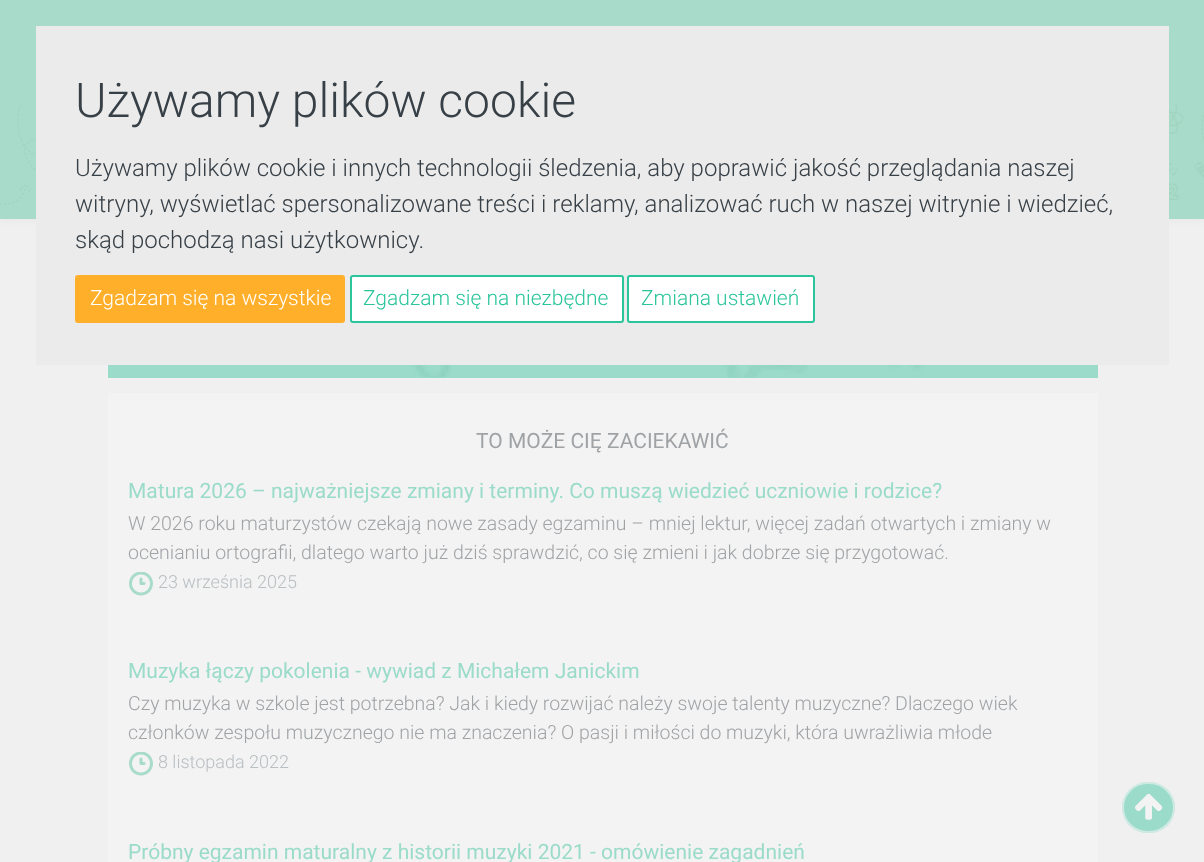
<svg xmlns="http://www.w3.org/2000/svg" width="1204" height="862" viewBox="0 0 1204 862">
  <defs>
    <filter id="blur1" x="-50%" y="-200%" width="200%" height="500%"><feGaussianBlur stdDeviation="4"/></filter>
  </defs>
  <rect width="100%" height="100%" fill="#f0f0f1"/>
  <rect x="0" y="0" width="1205" height="219" fill="#e3e3e3" filter="url(#blur1)"/>
  <image x="0" y="104" width="1204" height="115" href="img1.png"/>
  <rect x="0" y="0" width="1204" height="104" fill="#a8dbc9"/>
  <rect x="36" y="26" width="1133" height="339" fill="#ebebeb"/>
  <text x="75" y="117" font-family="Roboto" font-size="48" font-weight="300" fill="#384047">Używamy plików cookie</text>
  <text x="75" y="176" font-family="Roboto" font-size="24" font-weight="300" fill="#384047">Używamy plików cookie i innych technologii śledzenia, aby poprawić jakość przeglądania naszej</text>
  <text x="75" y="212" font-family="Roboto" font-size="24" font-weight="300" fill="#384047">witryny, wyświetlać spersonalizowane treści i reklamy, analizować ruch w naszej witrynie i wiedzieć,</text>
  <text x="75" y="248" font-family="Roboto" font-size="24" font-weight="300" fill="#384047">skąd pochodzą nasi użytkownicy.</text>
  <rect x="76" y="276" width="268" height="46" rx="2" fill="#ffaf2a" stroke="#ffaf2a" stroke-width="2"/>
  <text x="90" y="305" font-family="Roboto" font-size="21" font-weight="300" fill="#ffffff">Zgadzam się na wszystkie</text>
  <rect x="351" y="276" width="272" height="46" rx="2" fill="#ffffff" stroke="#2ac59b" stroke-width="2"/>
  <text x="363" y="305" font-family="Roboto" font-size="21" font-weight="300" fill="#2ac59b">Zgadzam się na niezbędne</text>
  <rect x="628" y="276" width="186" height="46" rx="2" fill="#ffffff" stroke="#2ac59b" stroke-width="2"/>
  <text x="641" y="305" font-family="Roboto" font-size="21" font-weight="300" fill="#2ac59b">Zmiana ustawień</text>
  <rect x="108" y="393" width="990" height="469" fill="#f3f3f3"/>
  <rect x="108" y="377" width="990" height="1" fill="#9adbc9"/>
  <image x="108" y="365" width="990" height="13" href="img2.png"/>
  <text x="476" y="448" font-family="Roboto" font-size="21" fill="#a0a3a6">TO MOŻE CIĘ ZACIEKAWIĆ</text>
  <text x="128" y="498" font-family="Roboto" font-size="21" fill="#9adbc9">Matura 2026 – najważniejsze zmiany i terminy. Co muszą wiedzieć uczniowie i rodzice?</text>
  <text x="128" y="530" font-family="Roboto" font-size="19.5" font-weight="300" fill="#a0a3a6">W 2026 roku maturzystów czekają nowe zasady egzaminu – mniej lektur, więcej zadań otwartych i zmiany w</text>
  <text x="128" y="559" font-family="Roboto" font-size="19.5" font-weight="300" fill="#a0a3a6">ocenianiu ortografii, dlatego warto już dziś sprawdzić, co się zmieni i jak dobrze się przygotować.</text>
  <image x="129" y="572" width="24" height="24" href="img3.png"/>
  <text x="158" y="588" font-family="Roboto" font-size="18" font-weight="300" fill="#b8bec1">23 września 2025</text>
  <text x="128" y="678" font-family="Roboto" font-size="21" fill="#9adbc9">Muzyka łączy pokolenia - wywiad z Michałem Janickim</text>
  <text x="128" y="710" font-family="Roboto" font-size="19.5" font-weight="300" fill="#a0a3a6">Czy muzyka w szkole jest potrzebna? Jak i kiedy rozwijać należy swoje talenty muzyczne? Dlaczego wiek</text>
  <text x="128" y="739" font-family="Roboto" font-size="19.5" font-weight="300" fill="#a0a3a6">członków zespołu muzycznego nie ma znaczenia? O pasji i miłości do muzyki, która uwrażliwia młode</text>
  <image x="129" y="752" width="24" height="24" href="img3.png"/>
  <text x="158" y="768" font-family="Roboto" font-size="18" font-weight="300" fill="#b8bec1">8 listopada 2022</text>
  <text x="128" y="859" font-family="Roboto" font-size="21" fill="#9adbc9">Próbny egzamin maturalny z historii muzyki 2021 - omówienie zagadnień</text>
  <rect x="1122" y="782" width="53" height="51" rx="25.5" fill="#9adbc9"/>
  <rect x="1123" y="783" width="51" height="49" rx="24.5" fill="none" stroke="#f3f3f3" stroke-opacity="0.6" stroke-width="2"/>
  <image x="1134" y="793" width="29" height="27" href="img4.png"/>
</svg>
